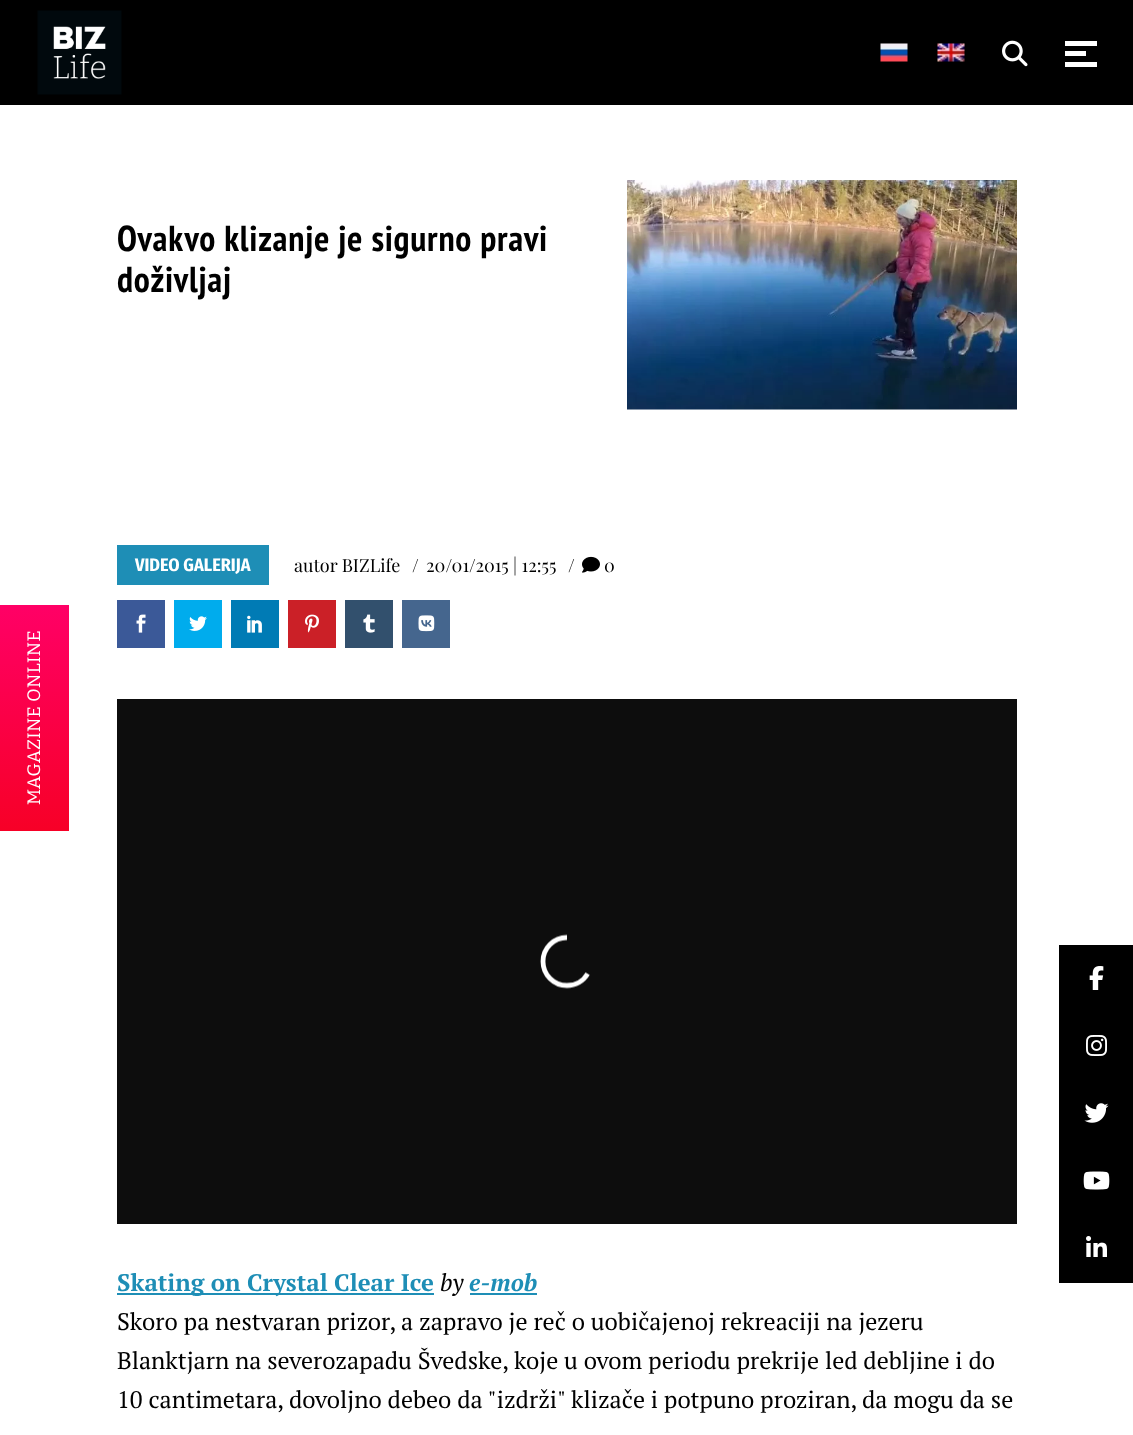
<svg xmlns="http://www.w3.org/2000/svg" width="1133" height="1435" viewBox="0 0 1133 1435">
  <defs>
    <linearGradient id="g1" gradientUnits="userSpaceOnUse" x1="-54" y1="605" x2="-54" y2="831"><stop offset="0" stop-color="#ff0066"/><stop offset="1" stop-color="#f70027"/></linearGradient>
  </defs>
  <rect width="100%" height="100%" fill="#ffffff"/>
  <rect x="0" y="605" width="69" height="226" fill="url(#g1)"/>
  <text x="40" y="805" transform="rotate(-90 40 805)" font-family="Bitter" font-size="18" letter-spacing="0.4" fill="#ffffff">MAGAZINE ONLINE</text>
  <rect x="0" y="0" width="1133" height="105" fill="#000000"/>
  <image x="37" y="10" width="85" height="85" href="img1.png"/>
  <image x="880" y="43" width="28" height="19" href="img2.png"/>
  <image x="937" y="43" width="28" height="19" href="img3.png"/>
  <image x="1002" y="40" width="26" height="27" href="img4.png"/>
  <rect x="1065" y="41" width="32" height="5" fill="#ffffff"/>
  <rect x="1065" y="51" width="21" height="5" fill="#ffffff"/>
  <rect x="1065" y="62" width="32" height="5" fill="#ffffff"/>
  <text x="117" y="251" font-family="PT Sans Narrow" font-size="36" font-weight="bold" letter-spacing="0.75" fill="#000000">Ovakvo klizanje je sigurno pravi</text>
  <text x="117" y="292" font-family="PT Sans Narrow" font-size="36" font-weight="bold" letter-spacing="0.75" fill="#000000">doživljaj</text>
  <image x="627" y="180" width="390" height="230" href="img5.png"/>
  <rect x="117" y="545" width="152" height="40" fill="#1e8eb6"/>
  <text x="135" y="571" font-family="Fira Sans Condensed" font-size="18" font-weight="bold" fill="#ffffff">VIDEO GALERIJA</text>
  <text x="294" y="572" font-family="Playfair Display" font-size="18" fill="#000000">autor BIZLife</text>
  <text x="412" y="572" font-family="Playfair Display" font-size="18" fill="#000000">/</text>
  <text x="426" y="572" font-family="Playfair Display" font-size="18" fill="#000000">20/01/2015 | 12:55</text>
  <text x="568" y="572" font-family="Playfair Display" font-size="18" fill="#000000">/</text>
  <image x="582" y="556" width="18" height="17" href="img6.png"/>
  <text x="604" y="572" font-family="Playfair Display" font-size="18" fill="#000000">0</text>
  <rect x="117" y="600" width="48" height="48" fill="#3b5998"/>
  <image x="136" y="614" width="10" height="19" href="img7.png"/>
  <rect x="174" y="600" width="48" height="48" fill="#00aced"/>
  <image x="189" y="616" width="18" height="15" href="img8.png"/>
  <rect x="231" y="600" width="48" height="48" fill="#007bb5"/>
  <image x="247" y="615" width="15" height="18" href="img9.png"/>
  <rect x="288" y="600" width="48" height="48" fill="#cb2027"/>
  <image x="305" y="614" width="14" height="19" href="img10.png"/>
  <rect x="345" y="600" width="48" height="48" fill="#32506d"/>
  <image x="363" y="614" width="12" height="19" href="img11.png"/>
  <rect x="402" y="600" width="48" height="48" fill="#45668e"/>
  <image x="418" y="615" width="17" height="17" href="img12.png"/>
  <image x="117" y="699" width="900" height="525" href="img13.png"/>
  <rect x="117" y="1293" width="317" height="2" fill="#1e8eb6"/>
  <text x="117" y="1291" font-family="PT Serif" font-size="24" font-weight="bold" fill="#1e8eb6">Skating on Crystal Clear Ice</text>
  <text x="440" y="1291" font-family="PT Serif" font-size="24" font-style="italic" fill="#000000">by</text>
  <text x="469" y="1291" font-family="PT Serif" font-size="24" font-weight="bold" font-style="italic" fill="#1e8eb6">e-mob</text>
  <rect x="470" y="1293" width="67" height="2" fill="#1e8eb6"/>
  <text x="117" y="1330" font-family="PT Serif" font-size="24" fill="#000000">Skoro pa nestvaran prizor, a zapravo je reč o uobičajenoj rekreaciji na jezeru</text>
  <text x="117" y="1369" font-family="PT Serif" font-size="24" fill="#000000">Blanktjarn na severozapadu Švedske, koje u ovom periodu prekrije led debljine i do</text>
  <text x="117" y="1408" font-family="PT Serif" font-size="24" fill="#000000">10 cantimetara, dovoljno debeo da "izdrži" klizače i potpuno proziran, da mogu da se</text>
  <rect x="1059" y="945" width="74" height="338" fill="#000000"/>
  <image x="1089" y="966" width="15" height="24" href="img14.png"/>
  <image x="1086" y="1035" width="21" height="21" href="img15.png"/>
  <image x="1084" y="1103" width="25" height="20" href="img16.png"/>
  <image x="1083" y="1171" width="27" height="19" href="img17.png"/>
  <image x="1086" y="1236" width="21" height="21" href="img18.png"/>
</svg>
